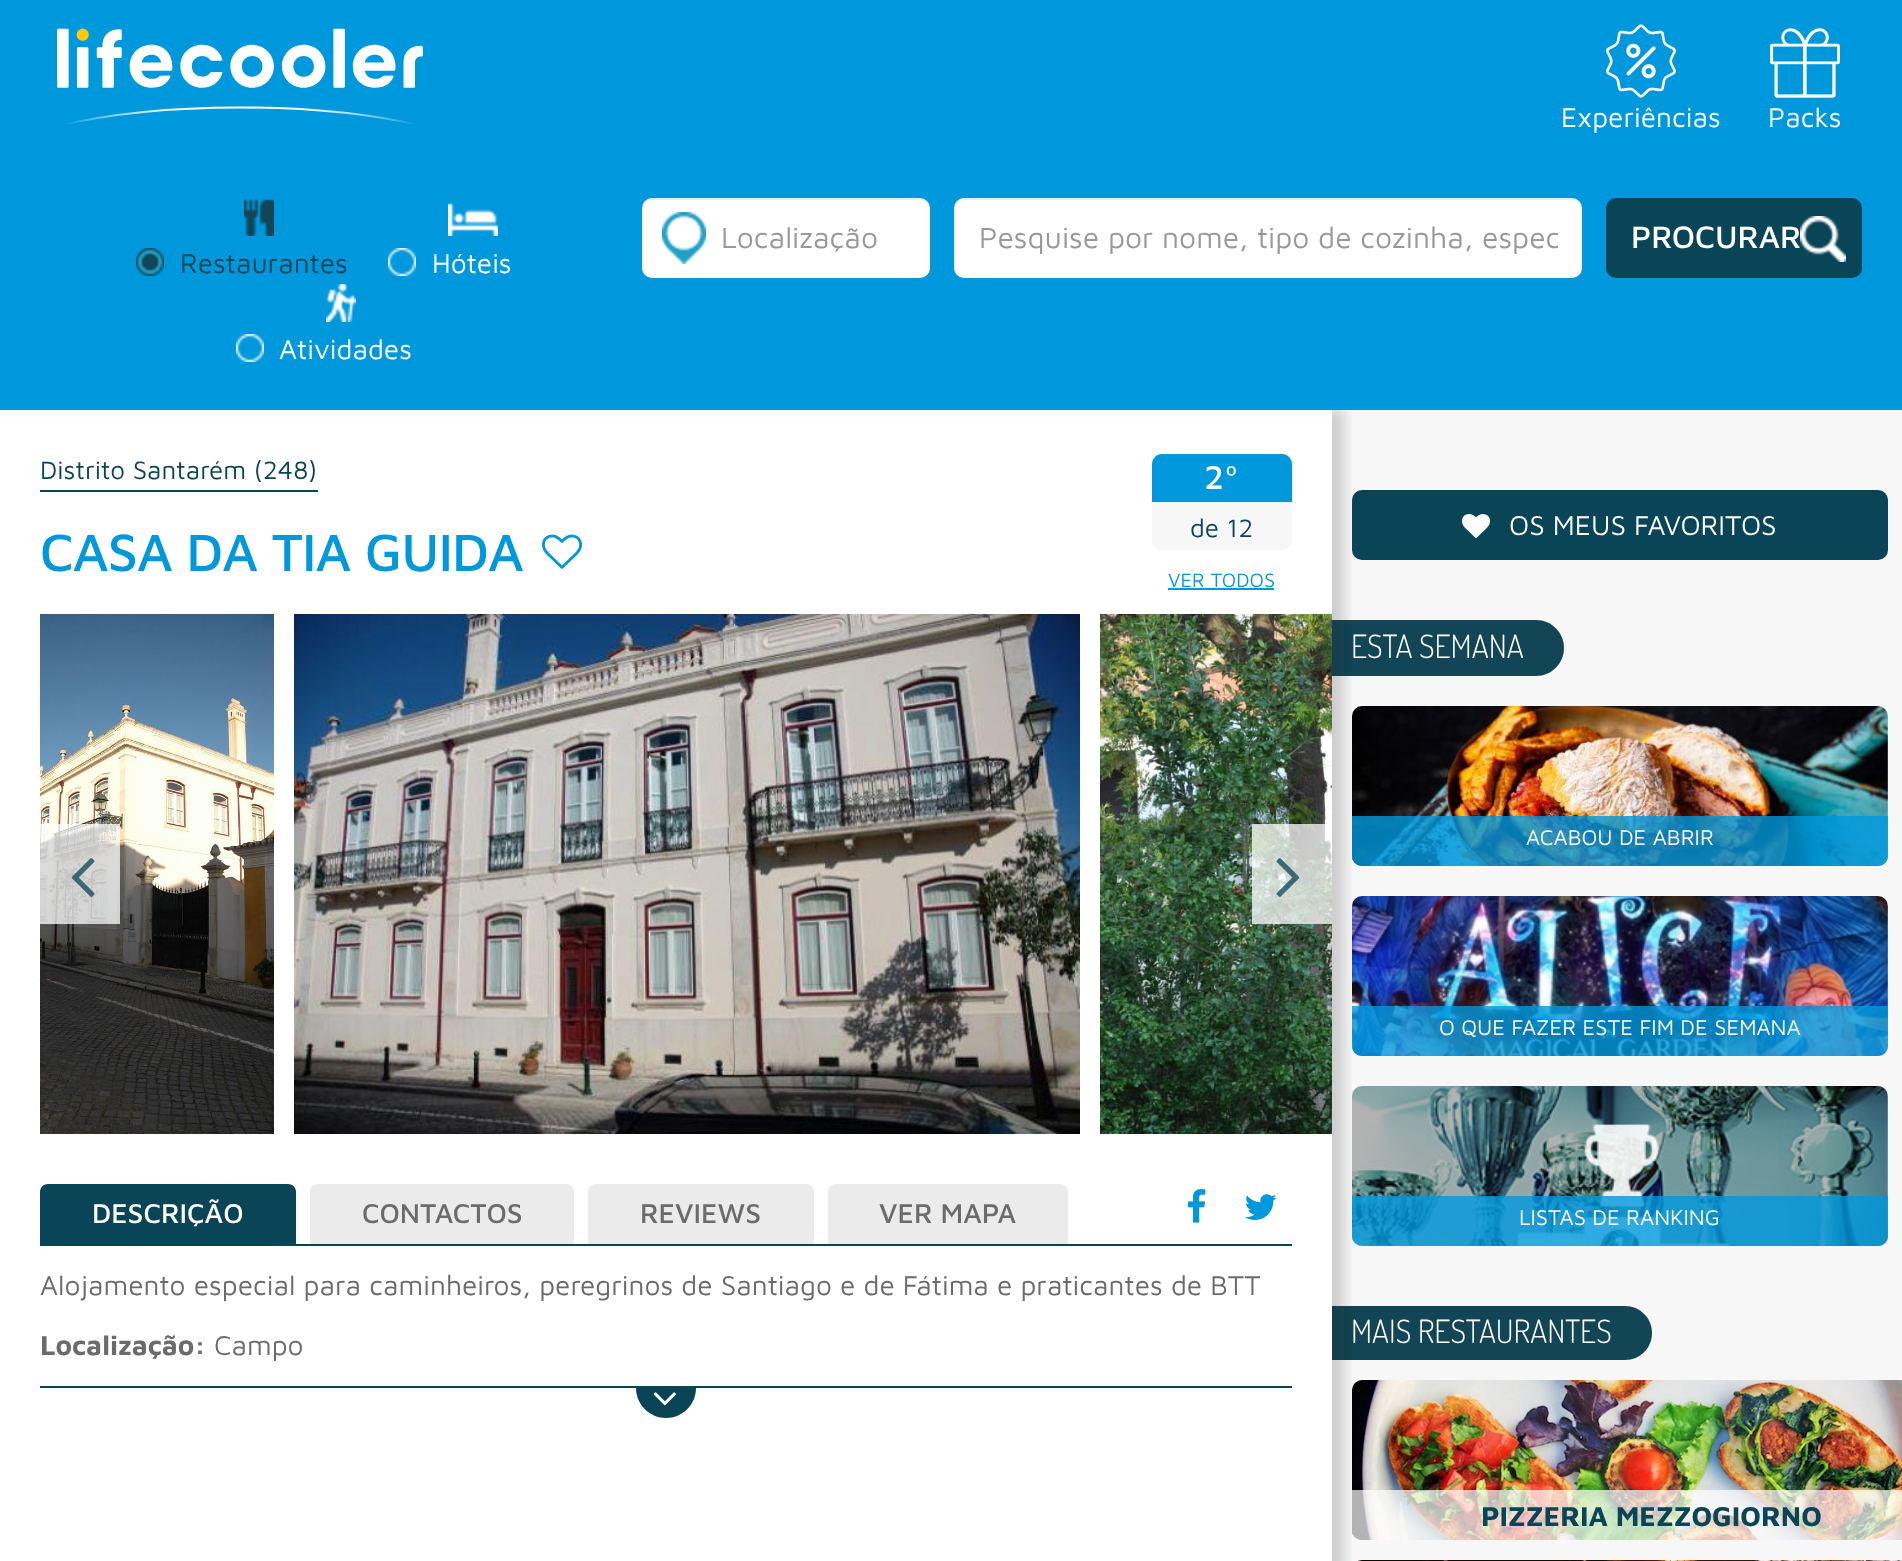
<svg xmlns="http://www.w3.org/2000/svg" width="1902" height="1561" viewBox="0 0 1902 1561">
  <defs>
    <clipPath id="clip1"><rect x="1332" y="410" width="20" height="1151"/></clipPath>
    <filter id="blur1" x="-50%" y="-200%" width="200%" height="500%"><feGaussianBlur stdDeviation="6"/></filter>
    <clipPath id="clip2"><rect x="978" y="220" width="580" height="34"/></clipPath>
  </defs>
  <rect width="100%" height="100%" fill="#ffffff"/>
  <rect x="1332" y="410" width="570" height="1151" fill="#f7f7f7"/>
  <rect x="1352" y="490" width="536" height="70" rx="10" fill="#094556"/>
  <path d="M1332 620H1536C1551.5 620 1564 632.5 1564 648C1564 663.5 1551.5 676 1536 676H1332Z" fill="#124555"/>
  <image x="1352" y="706" width="536" height="160" href="img21.png"/>
  <path d="M1352 816H1888V856C1888 861.5 1883.5 866 1878 866H1362C1356.5 866 1352 861.5 1352 856Z" fill="#0098dd" fill-opacity="0.8"/>
  <image x="1352" y="896" width="536" height="160" href="img22.png"/>
  <path d="M1352 1006H1888V1046C1888 1051.5 1883.5 1056 1878 1056H1362C1356.5 1056 1352 1051.5 1352 1046Z" fill="#0098dd" fill-opacity="0.8"/>
  <image x="1352" y="1086" width="536" height="160" href="img23.png"/>
  <path d="M1352 1196H1888V1236C1888 1241.5 1883.5 1246 1878 1246H1362C1356.5 1246 1352 1241.5 1352 1236Z" fill="#0098dd" fill-opacity="0.8"/>
  <path d="M1332 1306H1625C1640 1306 1652 1318 1652 1333C1652 1348 1640 1360 1625 1360H1332Z" fill="#124555"/>
  <image x="1352" y="1380" width="550" height="160" href="img24.png"/>
  <path d="M1352 1490H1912V1530C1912 1535.5 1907.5 1540 1902 1540H1362C1356.5 1540 1352 1535.5 1352 1530Z" fill="#ffffff" fill-opacity="0.7"/>
  <image x="1358" y="1560" width="544" height="1" href="img25.png"/>
  <g clip-path="url(#clip1)">
    <rect x="12" y="410" width="1332" height="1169" fill="#292929" fill-opacity="0.2" filter="url(#blur1)"/>
  </g>
  <rect x="0" y="0" width="1902" height="410" fill="#0098dd"/>
  <image x="57" y="28" width="366" height="97" href="img1.png"/>
  <image x="1606" y="24" width="70" height="74" href="img2.png"/>
  <text x="1561" y="127" font-family="Maven Pro" font-size="28" fill="#ffffff">Experiências</text>
  <image x="1770" y="28" width="70" height="70" href="img3.png"/>
  <text x="1768" y="127" font-family="Maven Pro" font-size="28" fill="#ffffff">Packs</text>
  <rect x="642" y="198" width="288" height="80" rx="10" fill="#ffffff"/>
  <image x="662" y="212" width="44" height="52" href="img4.png"/>
  <path d="M652 200H920C926 200 930 204 930 210V208C930 202 926 198 920 198H652C646 198 642 202 642 208V210C642 204 646 200 652 200Z" fill="#000000" fill-opacity="0.07"/>
  <text x="721" y="248" font-family="Maven Pro" font-size="30" fill="#999999">Localização</text>
  <rect x="954" y="198" width="628" height="80" rx="10" fill="#ffffff"/>
  <path d="M964 200H1572C1578 200 1582 204 1582 210C1582 204 1579 198 1572 198H964C957 198 954 204 954 210C954 204 958 200 964 200Z" fill="#000000" fill-opacity="0.07"/>
  <g clip-path="url(#clip2)">
    <text x="979" y="248" font-family="Maven Pro" font-size="30" fill="#999999">Pesquise por nome, tipo de cozinha, espec</text>
  </g>
  <rect x="1606" y="198" width="256" height="80" rx="10" fill="#094556"/>
  <text x="1631" y="248" font-family="Maven Pro" font-size="32" font-weight="500" fill="#ffffff">PROCURAR</text>
  <image x="1800" y="216" width="46" height="46" href="img5.png"/>
  <image x="244" y="199" width="30" height="37" href="img6.png"/>
  <image x="136" y="248" width="28" height="28" href="img7.png"/>
  <text x="180" y="273" font-family="Maven Pro" font-size="28" fill="#094556">Restaurantes</text>
  <image x="448" y="203" width="50" height="33" href="img8.png"/>
  <image x="388" y="248" width="28" height="28" href="img9.png"/>
  <text x="432" y="273" font-family="Maven Pro" font-size="28" fill="#ffffff">Hóteis</text>
  <image x="326" y="284" width="30" height="38" href="img10.png"/>
  <image x="236" y="334" width="28" height="28" href="img9.png"/>
  <text x="279" y="359" font-family="Maven Pro" font-size="28" fill="#ffffff">Atividades</text>
  <text x="40" y="479" font-family="Maven Pro" font-size="26" fill="#094556">Distrito Santarém (248)</text>
  <rect x="40" y="490" width="278" height="2" fill="#094556"/>
  <text x="40" y="571" font-family="Maven Pro" font-size="54" font-weight="500" letter-spacing="-1" fill="#0098dd">CASA DA TIA GUIDA</text>
  <image x="542" y="534" width="40" height="35" href="img11.png"/>
  <path d="M1162 454H1282C1287.5 454 1292 458.5 1292 464V502H1152V464C1152 458.5 1156.5 454 1162 454Z" fill="#0098dd"/>
  <text x="1204" y="489" font-family="Maven Pro" font-size="34" font-weight="500" fill="#ffffff">2º</text>
  <path d="M1152 502H1292V540C1292 545.5 1287.5 550 1282 550H1162C1156.5 550 1152 545.5 1152 540Z" fill="#f7f7f7"/>
  <text x="1190" y="537" font-family="Maven Pro" font-size="26" fill="#094556">de 12</text>
  <text x="1168" y="587" font-family="Maven Pro" font-size="20" fill="#0098dd">VER TODOS</text>
  <rect x="1168" y="588" width="106" height="2" fill="#0098dd"/>
  <image x="40" y="614" width="234" height="520" href="img12.png"/>
  <image x="294" y="614" width="786" height="520" href="img13.png"/>
  <image x="1100" y="614" width="232" height="520" href="img14.png"/>
  <rect x="40" y="824" width="80" height="100" fill="#ffffff" fill-opacity="0.75"/>
  <image x="71" y="858" width="24" height="39" href="img15.png"/>
  <rect x="1252" y="824" width="80" height="100" fill="#ffffff" fill-opacity="0.75"/>
  <image x="1276" y="858" width="24" height="39" href="img16.png"/>
  <rect x="40" y="1244" width="1252" height="2" fill="#094556"/>
  <path d="M48 1184H288C292.5 1184 296 1187.5 296 1192V1244H40V1192C40 1187.5 43.5 1184 48 1184Z" fill="#094556"/>
  <text x="92" y="1223" font-family="Maven Pro" font-size="28" font-weight="500" fill="#ffffff">DESCRIÇÃO</text>
  <path d="M318 1184H566C570.5 1184 574 1187.5 574 1192V1244H310V1192C310 1187.5 313.5 1184 318 1184Z" fill="#ebebeb"/>
  <text x="362" y="1223" font-family="Maven Pro" font-size="28" font-weight="500" fill="#6b6b6b">CONTACTOS</text>
  <path d="M596 1184H806C810.5 1184 814 1187.5 814 1192V1244H588V1192C588 1187.5 591.5 1184 596 1184Z" fill="#ebebeb"/>
  <text x="640" y="1223" font-family="Maven Pro" font-size="28" font-weight="500" fill="#6b6b6b">REVIEWS</text>
  <path d="M836 1184H1060C1064.5 1184 1068 1187.5 1068 1192V1244H828V1192C828 1187.5 831.5 1184 836 1184Z" fill="#ebebeb"/>
  <text x="879" y="1223" font-family="Maven Pro" font-size="28" font-weight="500" fill="#6b6b6b">VER MAPA</text>
  <image x="1187" y="1189" width="19" height="34" href="img17.png"/>
  <image x="1245" y="1194" width="32" height="26" href="img18.png"/>
  <rect x="40" y="1386" width="1252" height="2" fill="#094556"/>
  <text x="40" y="1295" font-family="Maven Pro" font-size="28" fill="#6b6b6b">Alojamento especial para caminheiros, peregrinos de Santiago e de Fátima e praticantes de BTT</text>
  <text x="40" y="1355" font-family="Maven Pro" font-size="28" font-weight="bold" fill="#6b6b6b">Localização:</text>
  <text x="214" y="1355" font-family="Maven Pro" font-size="28" fill="#6b6b6b">Campo</text>
  <path d="M636 1388H696C696 1404.5 682.5 1418 666 1418C649.5 1418 636 1404.5 636 1388Z" fill="#094556"/>
  <image x="653" y="1392" width="23" height="14" href="img19.png"/>
  <image x="1462" y="514" width="28" height="24" href="img20.png"/>
  <text x="1509" y="535" font-family="Maven Pro" font-size="28" fill="#ffffff">OS MEUS FAVORITOS</text>
  <text x="1351" y="658" font-family="Dosis" font-size="32" font-weight="300" fill="#ffffff">ESTA SEMANA</text>
  <text x="1526" y="845" font-family="Maven Pro" font-size="22" fill="#ffffff">ACABOU DE ABRIR</text>
  <text x="1439" y="1035" font-family="Maven Pro" font-size="22" fill="#ffffff">O QUE FAZER ESTE FIM DE SEMANA</text>
  <text x="1519" y="1225" font-family="Maven Pro" font-size="22" fill="#ffffff">LISTAS DE RANKING</text>
  <text x="1351" y="1343" font-family="Dosis" font-size="32" font-weight="300" fill="#ffffff">MAIS RESTAURANTES</text>
  <text x="1481" y="1526" font-family="Maven Pro" font-size="28" font-weight="bold" fill="#094556">PIZZERIA MEZZOGIORNO</text>
</svg>
